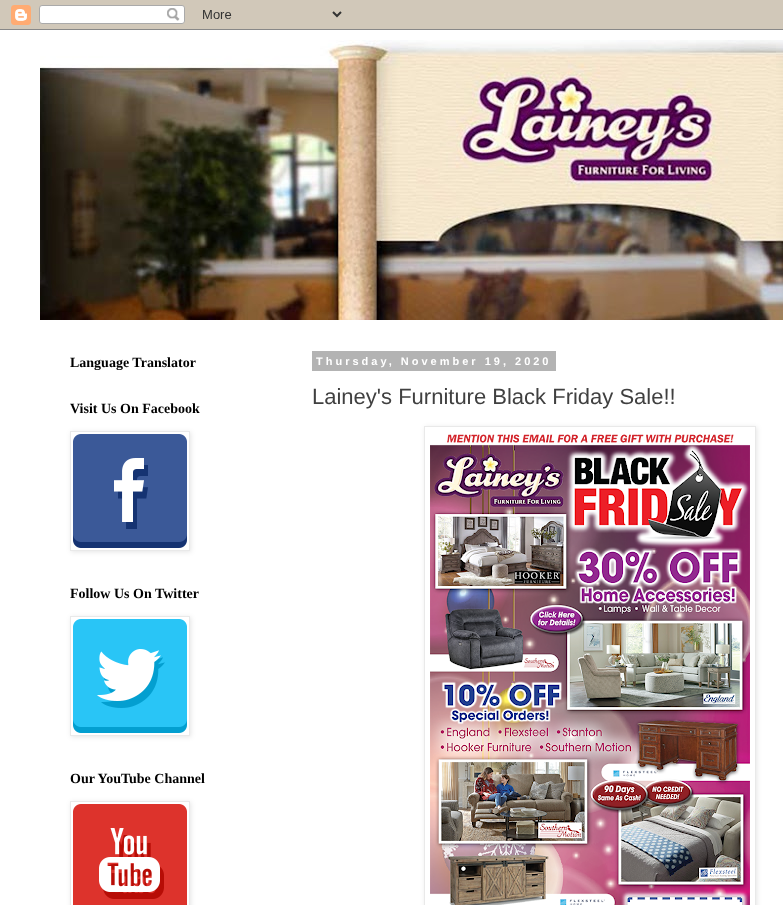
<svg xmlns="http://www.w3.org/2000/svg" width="783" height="905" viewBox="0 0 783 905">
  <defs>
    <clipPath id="clip1"><path d="M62 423H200V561H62ZM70 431H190V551H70Z" clip-rule="evenodd"/></clipPath>
    <filter id="blur1" x="-50%" y="-200%" width="200%" height="500%"><feGaussianBlur stdDeviation="2.5"/></filter>
    <clipPath id="clip2"><path d="M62 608H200V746H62ZM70 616H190V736H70Z" clip-rule="evenodd"/></clipPath>
    <clipPath id="clip3"><path d="M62 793H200V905H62ZM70 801H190V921H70Z" clip-rule="evenodd"/></clipPath>
    <clipPath id="clip4"><path d="M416 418H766V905H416ZM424 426H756V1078H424Z" clip-rule="evenodd"/></clipPath>
  </defs>
  <rect width="100%" height="100%" fill="#b2a48a"/>
  <image x="0" y="0" width="783" height="30" href="img1.png"/>
  <rect x="0" y="30" width="783" height="875" fill="#ffffff"/>
  <image x="40" y="40" width="743" height="280" href="img2.png"/>
  <text x="70" y="367" font-family="Liberation Serif" font-size="14" font-weight="bold" fill="#000000">Language Translator</text>
  <text x="70" y="413" font-family="Liberation Serif" font-size="14" font-weight="bold" fill="#000000">Visit Us On Facebook</text>
  <g clip-path="url(#clip1)">
    <rect x="71" y="432" width="120" height="120" fill="#000000" fill-opacity="0.1" filter="url(#blur1)"/>
  </g>
  <rect x="70.5" y="431.5" width="119" height="119" fill="none" stroke="#e9e9e9"/>
  <image x="73" y="434" width="114" height="114" href="img3.png"/>
  <text x="70" y="598" font-family="Liberation Serif" font-size="14" font-weight="bold" fill="#000000">Follow Us On Twitter</text>
  <g clip-path="url(#clip2)">
    <rect x="71" y="617" width="120" height="120" fill="#000000" fill-opacity="0.1" filter="url(#blur1)"/>
  </g>
  <rect x="70.5" y="616.5" width="119" height="119" fill="none" stroke="#e9e9e9"/>
  <image x="73" y="619" width="114" height="114" href="img4.png"/>
  <text x="70" y="783" font-family="Liberation Serif" font-size="14" font-weight="bold" fill="#000000">Our YouTube Channel</text>
  <g clip-path="url(#clip3)">
    <rect x="71" y="802" width="120" height="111" fill="#000000" fill-opacity="0.1" filter="url(#blur1)"/>
  </g>
  <rect x="70.5" y="801.5" width="119" height="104" fill="none" stroke="#e9e9e9"/>
  <image x="73" y="804" width="114" height="101" href="img5.png"/>
  <rect x="312" y="351" width="244" height="20" fill="#b3b3b3"/>
  <text x="316" y="365" font-family="Liberation Sans" font-size="11" font-weight="bold" letter-spacing="3" fill="#ffffff">Thursday, November 19, 2020</text>
  <text x="312" y="404" font-family="Liberation Sans" font-size="22" fill="#404040">Lainey's Furniture Black Friday Sale!!</text>
  <g clip-path="url(#clip4)">
    <rect x="425" y="427" width="332" height="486" fill="#000000" fill-opacity="0.1" filter="url(#blur1)"/>
  </g>
  <rect x="424.5" y="426.5" width="331" height="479" fill="none" stroke="#e9e9e9"/>
  <image x="430" y="434" width="320" height="471" href="img6.png"/>
</svg>
